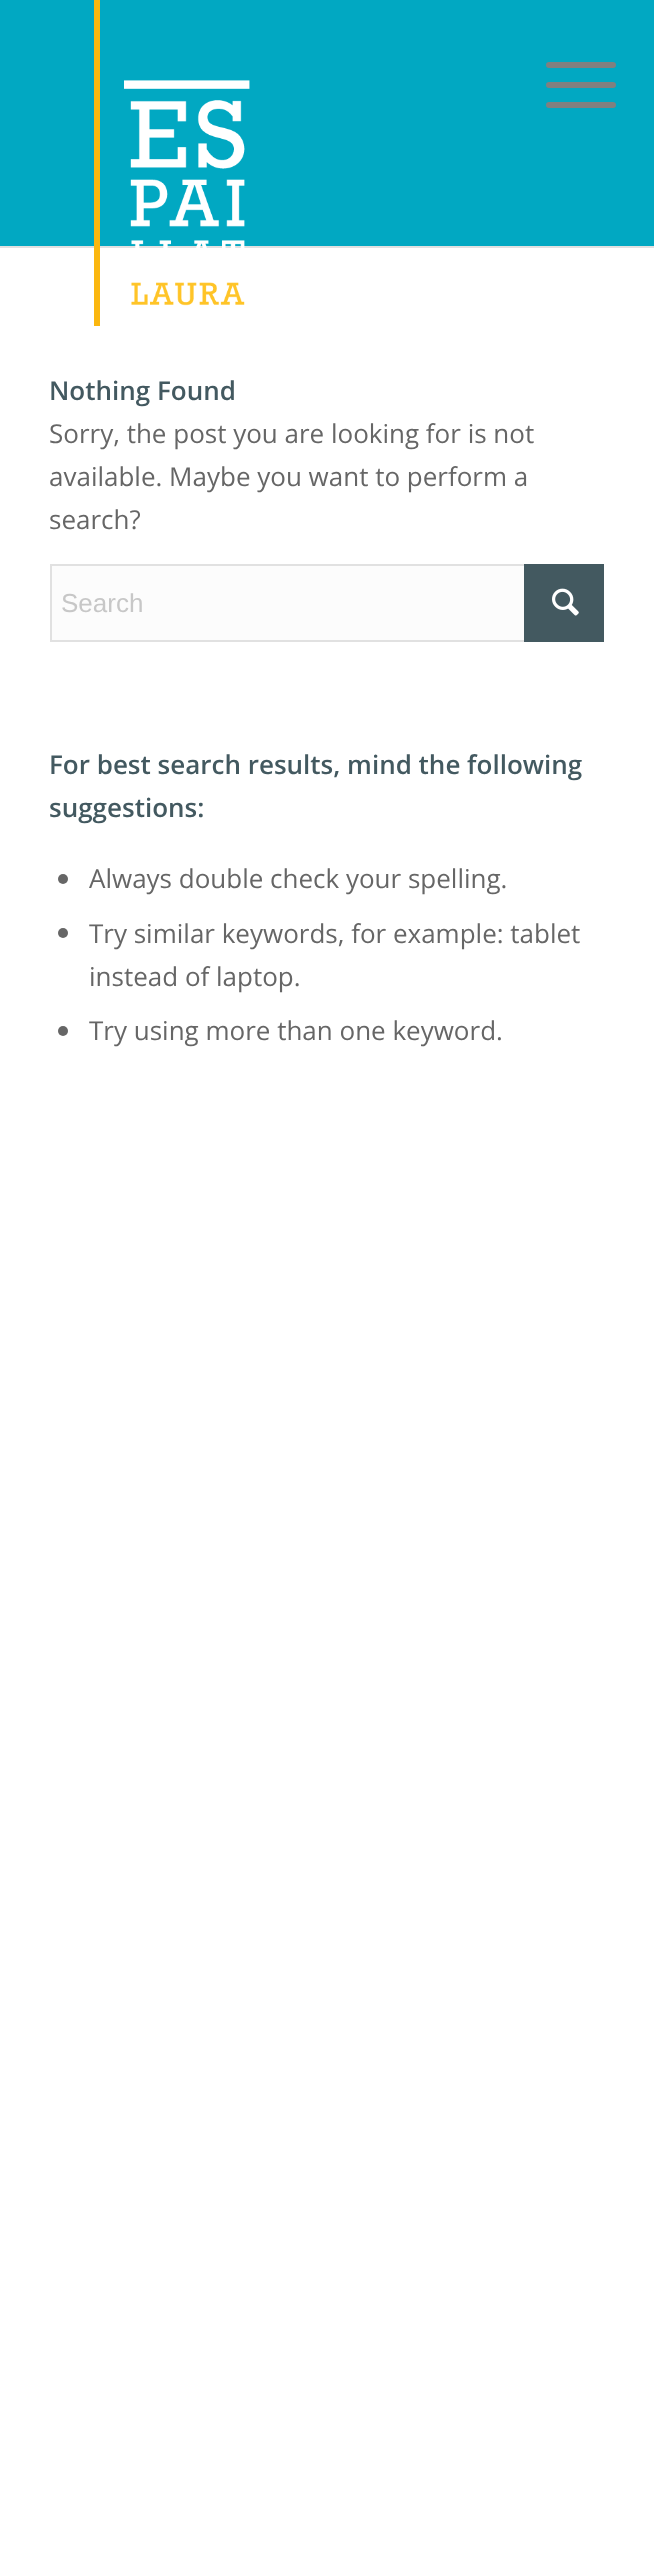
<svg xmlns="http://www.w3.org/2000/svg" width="654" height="2566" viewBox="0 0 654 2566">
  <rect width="100%" height="100%" fill="#ffffff"/>
  <rect x="0" y="0" width="654" height="246" fill="#01a8c2"/>
  <rect x="0" y="246" width="654" height="2" fill="#e1e1e1"/>
  <rect x="94" y="0" width="6" height="326" fill="#fbb70f"/>
  <image x="124" y="80" width="126" height="226" href="img1.png"/>
  <rect x="546" y="82" width="70" height="6" rx="3" fill="#808080"/>
  <rect x="546" y="62" width="70" height="6" rx="3" fill="#808080"/>
  <rect x="546" y="102" width="70" height="6" rx="3" fill="#808080"/>
  <text x="49" y="400" font-family="Open Sans" font-size="26" font-weight="600" fill="#435960">Nothing Found</text>
  <text x="49" y="443" font-family="Open Sans" font-size="26" fill="#666666">Sorry, the post you are looking for is not</text>
  <text x="49" y="486" font-family="Open Sans" font-size="26" fill="#666666">available. Maybe you want to perform a</text>
  <text x="49" y="529" font-family="Open Sans" font-size="26" fill="#666666">search?</text>
  <rect x="52" y="566" width="472" height="74" fill="#fcfcfc"/>
  <rect x="51" y="565" width="552" height="76" fill="none" stroke="#e1e1e1" stroke-width="2"/>
  <text x="61" y="612" font-family="Liberation Sans" font-size="26" fill="#c7c7c7">Search</text>
  <rect x="524" y="564" width="80" height="78" fill="#435960"/>
  <image x="552" y="588" width="27" height="28" href="img2.png"/>
  <text x="49" y="774" font-family="Open Sans" font-size="26" font-weight="600" fill="#435960">For best search results, mind the following</text>
  <text x="49" y="817" font-family="Open Sans" font-size="26" font-weight="600" fill="#435960">suggestions:</text>
  <circle cx="63" cy="879" r="5" fill="#666666"/>
  <text x="89" y="888" font-family="Open Sans" font-size="26" fill="#666666">Always double check your spelling.</text>
  <circle cx="63" cy="933" r="5" fill="#666666"/>
  <text x="89" y="943" font-family="Open Sans" font-size="26" fill="#666666">Try similar keywords, for example: tablet</text>
  <text x="89" y="986" font-family="Open Sans" font-size="26" fill="#666666">instead of laptop.</text>
  <circle cx="63" cy="1031" r="5" fill="#666666"/>
  <text x="89" y="1040" font-family="Open Sans" font-size="26" fill="#666666">Try using more than one keyword.</text>
</svg>
